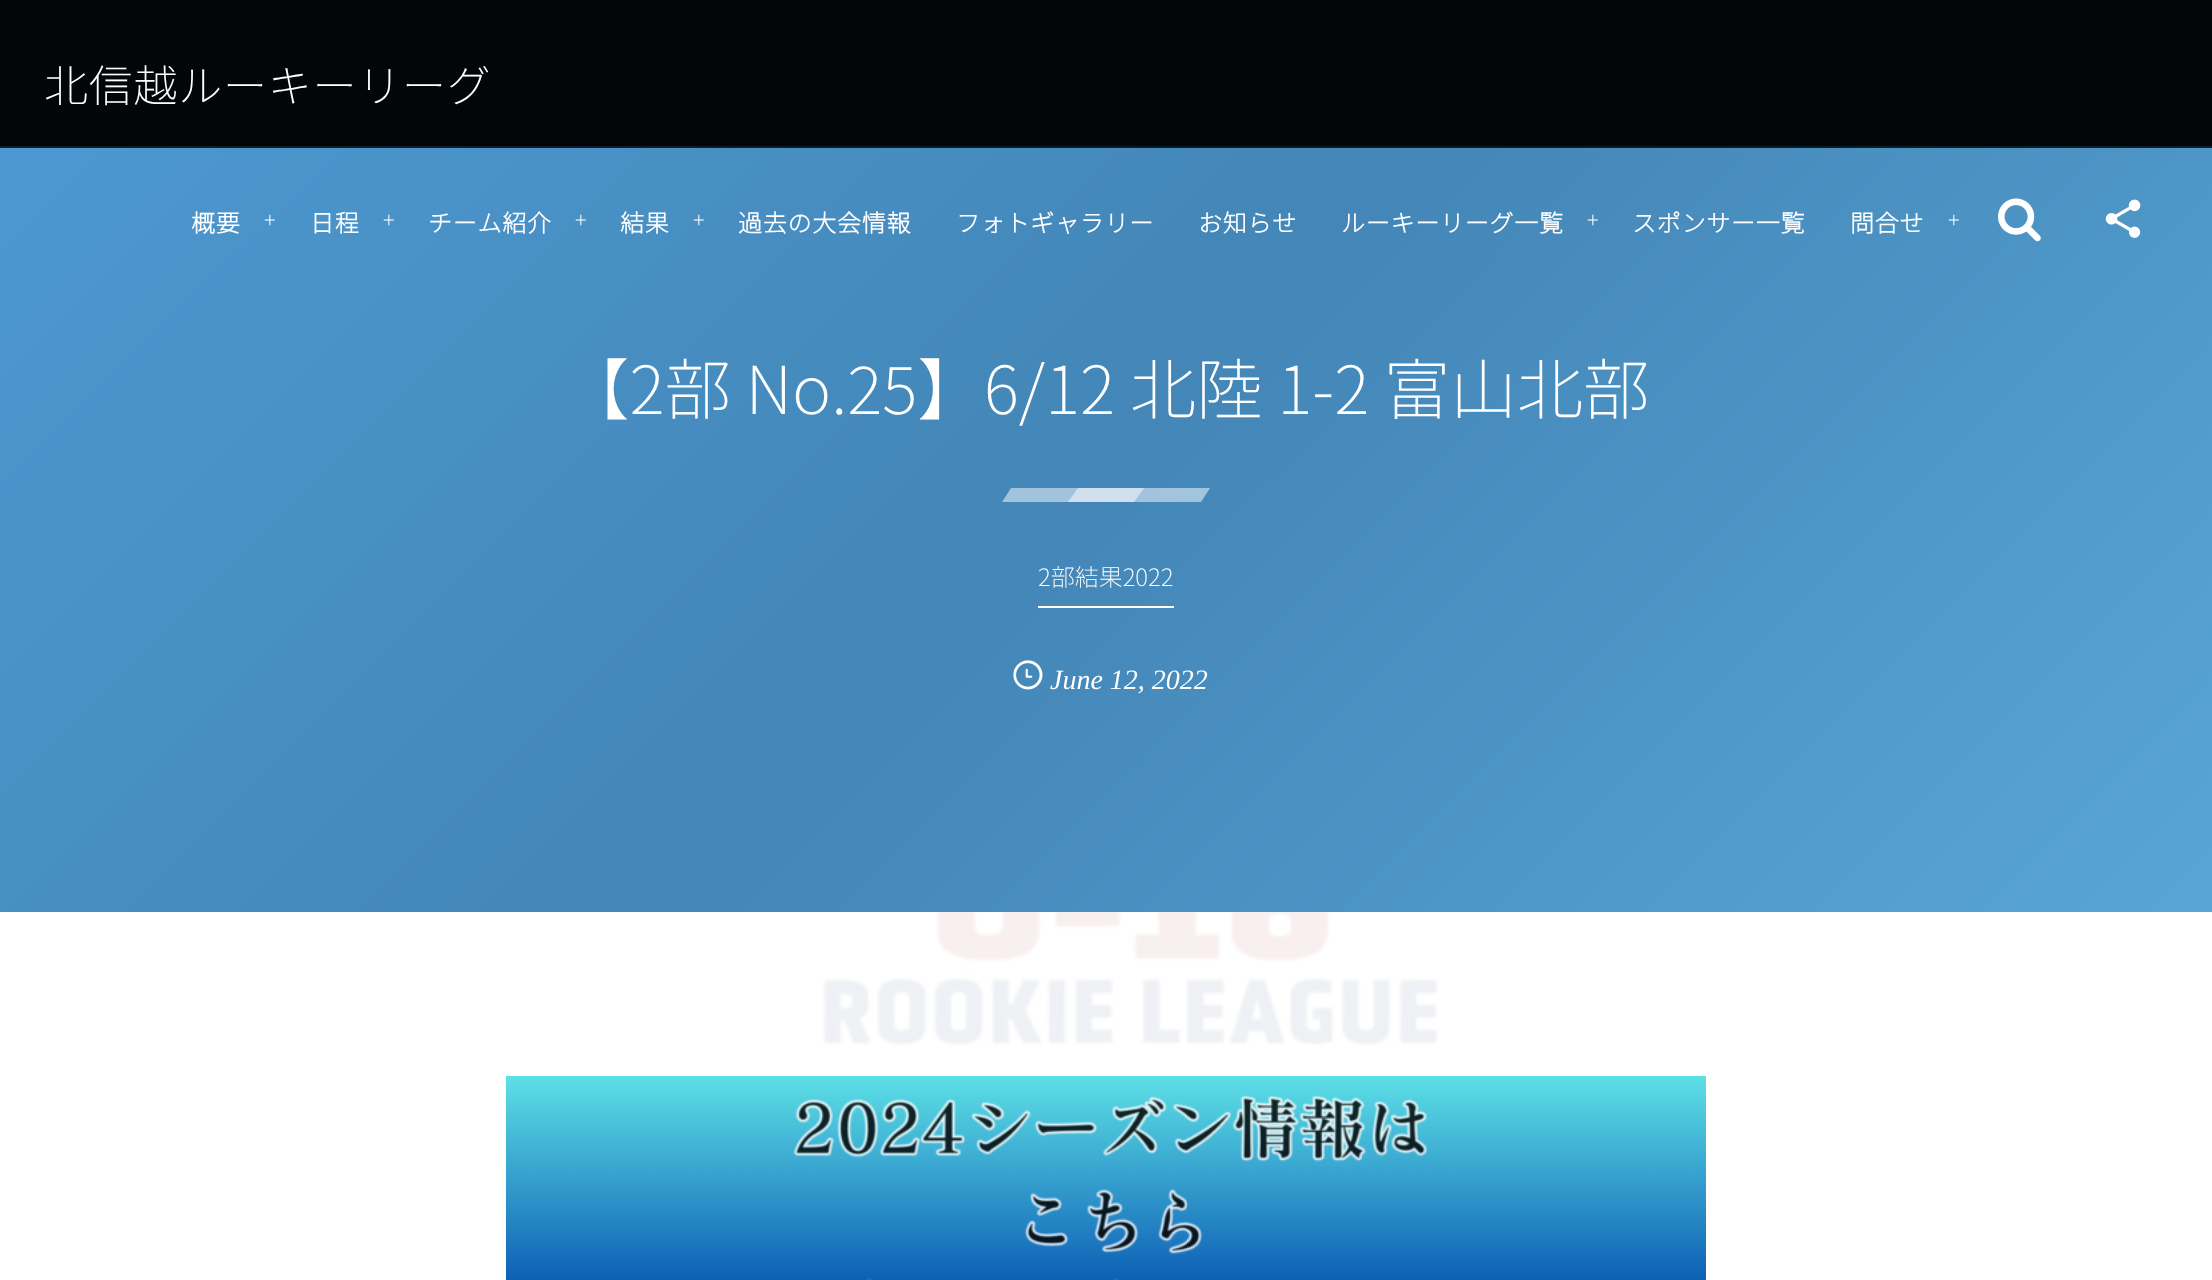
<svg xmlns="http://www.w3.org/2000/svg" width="2212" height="1280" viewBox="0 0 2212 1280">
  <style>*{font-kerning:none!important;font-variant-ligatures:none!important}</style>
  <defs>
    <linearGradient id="g1" gradientUnits="userSpaceOnUse" x1="325" y1="-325" x2="1887" y2="1237"><stop offset="0" stop-color="#030608"/><stop offset="0.5" stop-color="#030507"/><stop offset="1" stop-color="#040709"/></linearGradient>
    <linearGradient id="g2" gradientUnits="userSpaceOnUse" x1="325" y1="-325" x2="1887" y2="1237"><stop offset="0" stop-color="#4e9ad3"/><stop offset="0.5" stop-color="#4386b7"/><stop offset="1" stop-color="#59a5d7"/></linearGradient>
    <linearGradient id="g3" gradientUnits="userSpaceOnUse" x1="325" y1="-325" x2="1887" y2="1237"><stop offset="0" stop-color="#101f2a"/><stop offset="0.5" stop-color="#0d1b25"/><stop offset="1" stop-color="#12212b"/></linearGradient>
  </defs>
  <rect width="100%" height="100%" fill="#ffffff"/>
  <rect x="0" y="0" width="2212" height="146" fill="url(#g1)"/>
  <text x="44" y="102" font-family="Noto Sans JP" font-size="44" font-weight="100" letter-spacing="0.75" fill="#ffffff">北信越ルーキーリーグ</text>
  <rect x="0" y="148" width="2212" height="764" fill="url(#g2)"/>
  <text x="191" y="232" font-family="Noto Sans JP" font-size="24" font-weight="bold" letter-spacing="0.75" fill="#ffffff">概要</text>
  <text x="264" y="228" font-family="Noto Sans JP" font-size="22" font-weight="100" letter-spacing="0.75" fill="#ffffff">+</text>
  <text x="310" y="232" font-family="Noto Sans JP" font-size="24" font-weight="bold" letter-spacing="0.75" fill="#ffffff">日程</text>
  <text x="383" y="228" font-family="Noto Sans JP" font-size="22" font-weight="100" letter-spacing="0.75" fill="#ffffff">+</text>
  <text x="428" y="232" font-family="Noto Sans JP" font-size="24" font-weight="bold" letter-spacing="0.75" fill="#ffffff">チーム紹介</text>
  <text x="575" y="228" font-family="Noto Sans JP" font-size="22" font-weight="100" letter-spacing="0.75" fill="#ffffff">+</text>
  <text x="620" y="232" font-family="Noto Sans JP" font-size="24" font-weight="bold" letter-spacing="0.75" fill="#ffffff">結果</text>
  <text x="693" y="228" font-family="Noto Sans JP" font-size="22" font-weight="100" letter-spacing="0.75" fill="#ffffff">+</text>
  <text x="738" y="232" font-family="Noto Sans JP" font-size="24" font-weight="bold" letter-spacing="0.75" fill="#ffffff">過去の大会情報</text>
  <text x="956" y="232" font-family="Noto Sans JP" font-size="24" font-weight="bold" letter-spacing="0.75" fill="#ffffff">フォトギャラリー</text>
  <text x="1198" y="232" font-family="Noto Sans JP" font-size="24" font-weight="bold" letter-spacing="0.75" fill="#ffffff">お知らせ</text>
  <text x="1341" y="232" font-family="Noto Sans JP" font-size="24" font-weight="bold" letter-spacing="0.75" fill="#ffffff">ルーキーリーグ一覧</text>
  <text x="1587" y="228" font-family="Noto Sans JP" font-size="22" font-weight="100" letter-spacing="0.75" fill="#ffffff">+</text>
  <text x="1632" y="232" font-family="Noto Sans JP" font-size="24" font-weight="bold" letter-spacing="0.75" fill="#ffffff">スポンサー一覧</text>
  <text x="1850" y="232" font-family="Noto Sans JP" font-size="24" font-weight="bold" letter-spacing="0.75" fill="#ffffff">問合せ</text>
  <text x="1948" y="228" font-family="Noto Sans JP" font-size="22" font-weight="100" letter-spacing="0.75" fill="#ffffff">+</text>
  <image x="1998" y="198" width="43" height="44" href="img1.png"/>
  <image x="2105" y="199" width="36" height="39" href="img2.png"/>
  <rect x="0" y="146" width="2212" height="2" fill="url(#g3)"/>
  <text x="563" y="414" font-family="Noto Sans JP" font-size="66.4" font-weight="100" fill="#ffffff">【2部 No.25】6/12 北陸 1-2 富山北部</text>
  <path d="M1011 488H1144L1134 502H1002Z" fill="#a1c3db"/>
  <path d="M1078 488H1210L1201 502H1068Z" fill="#ffffff" fill-opacity="0.5"/>
  <rect x="1038" y="606" width="136" height="2" fill="#ffffff"/>
  <text x="1038" y="586" font-family="Noto Sans JP" font-size="24" font-weight="100" fill="#ffffff">2部結果2022</text>
  <image x="1013" y="660" width="30" height="30" href="img3.png"/>
  <text x="1050" y="689" font-family="Liberation Serif" font-size="28" font-style="italic" fill="#ffffff">June 12, 2022</text>
  <image x="767" y="912" width="747" height="145" href="img4.png"/>
  <image x="506" y="1076" width="1200" height="204" href="img5.png"/>
</svg>
